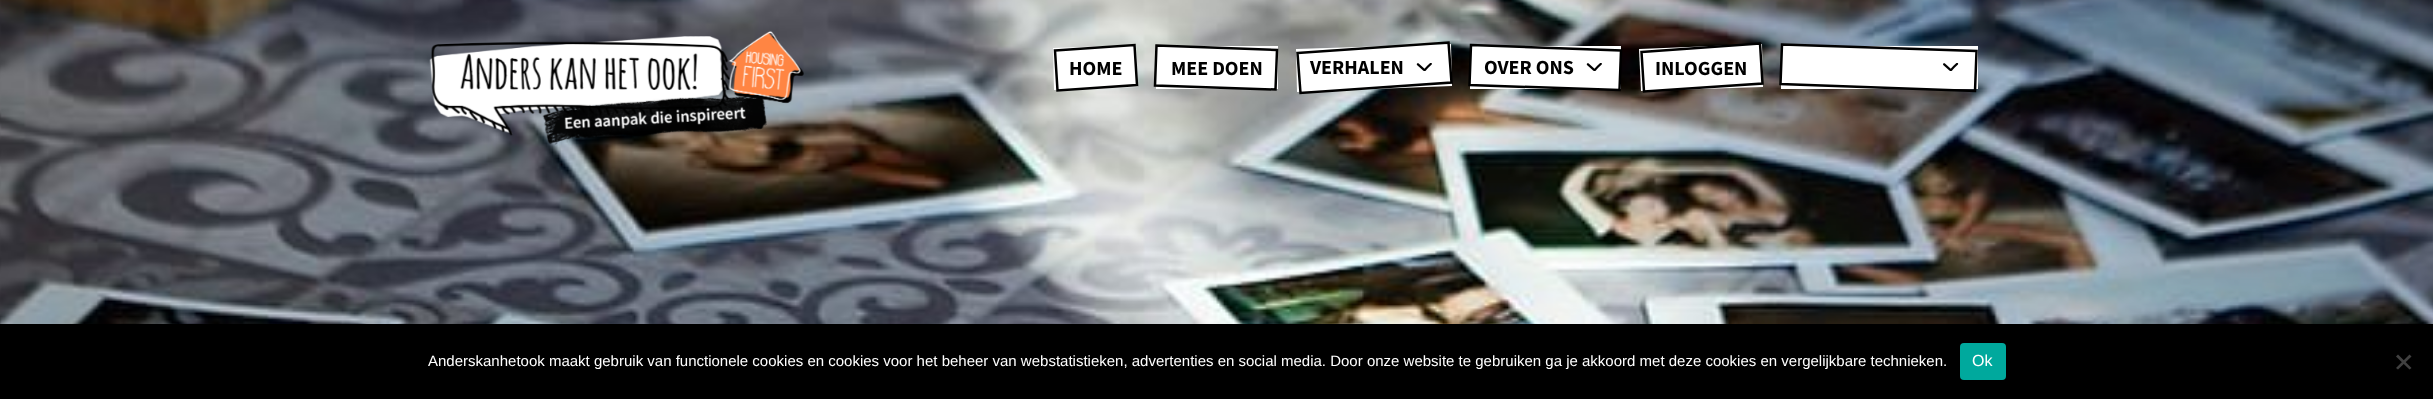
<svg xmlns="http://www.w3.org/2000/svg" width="2433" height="399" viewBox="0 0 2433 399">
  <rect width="100%" height="100%" fill="#ffffff"/>
  <image x="0" y="0" width="2433" height="324" href="img1.png"/>
  <image x="429" y="31" width="375" height="114" href="img2.png"/>
  <path d="M1053 48L1136 45L1138 87L1054 90Z" fill="#ffffff"/>
  <path d="M1055 50.5L1134.5 45L1137 85L1057.5 90.5Z" fill="none" stroke="#000000" stroke-width="2.5"/>
  <text x="1069" y="75" font-family="Source Sans Pro" font-size="20" font-weight="bold" fill="#000000">HOME</text>
  <rect x="1156" y="46" width="122" height="43" fill="#ffffff"/>
  <path d="M1156.5 45.5L1277 50L1275.5 89.5L1155 85.5Z" fill="none" stroke="#000000" stroke-width="2.5"/>
  <text x="1171" y="75" font-family="Source Sans Pro" font-size="20" font-weight="bold" fill="#000000">MEE DOEN</text>
  <path d="M1296 49L1451 44L1452 86L1297 92Z" fill="#ffffff"/>
  <image x="1416" y="63" width="16" height="8" href="img3.png"/>
  <path d="M1297.5 53L1448.5 42.5L1451.5 82.5L1300.5 93Z" fill="none" stroke="#000000" stroke-width="2.5"/>
  <text x="1310" y="74" font-family="Source Sans Pro" font-size="20" font-weight="bold" fill="#000000">VERHALEN</text>
  <rect x="1470" y="46" width="151" height="43" fill="#ffffff"/>
  <image x="1586" y="63" width="16" height="8" href="img3.png"/>
  <path d="M1471 45L1621 50.5L1619.5 90L1469.5 85Z" fill="none" stroke="#000000" stroke-width="2.5"/>
  <text x="1484" y="74" font-family="Source Sans Pro" font-size="20" font-weight="bold" fill="#000000">OVER ONS</text>
  <path d="M1639 49L1762 44L1763 87L1641 91Z" fill="#ffffff"/>
  <path d="M1641.5 52L1760 43.5L1762.5 83.5L1644 91.5Z" fill="none" stroke="#000000" stroke-width="2.5"/>
  <text x="1655" y="75" font-family="Source Sans Pro" font-size="20" font-weight="bold" fill="#000000">INLOGGEN</text>
  <rect x="1781" y="46" width="197" height="43" fill="#ffffff"/>
  <image x="1943" y="63" width="16" height="8" href="img4.png"/>
  <path d="M1782 44.5L1976.5 51L1975 91L1780.5 84Z" fill="none" stroke="#000000" stroke-width="2.5"/>
  <rect x="0" y="324" width="2433" height="75" fill="#000000"/>
  <text x="428" y="366" font-family="Liberation Sans" font-size="15" fill="#ffffff">Anderskanhetook maakt gebruik van functionele cookies en cookies voor het beheer van webstatistieken, advertenties en social media. Door onze website te gebruiken ga je akkoord met deze cookies en vergelijkbare technieken.</text>
  <rect x="1960" y="343" width="46" height="37" rx="4" fill="#00a99d"/>
  <text x="1972" y="366" font-family="Liberation Sans" font-size="16" fill="#ffffff">Ok</text>
  <path d="M2409.5 354.5L2411.5 356.5L2398 369.5L2396 368Z" fill="#404040"/>
  <path d="M2396 356.5L2398 354.5L2411.5 368L2409.5 369.5Z" fill="#404040"/>
</svg>
